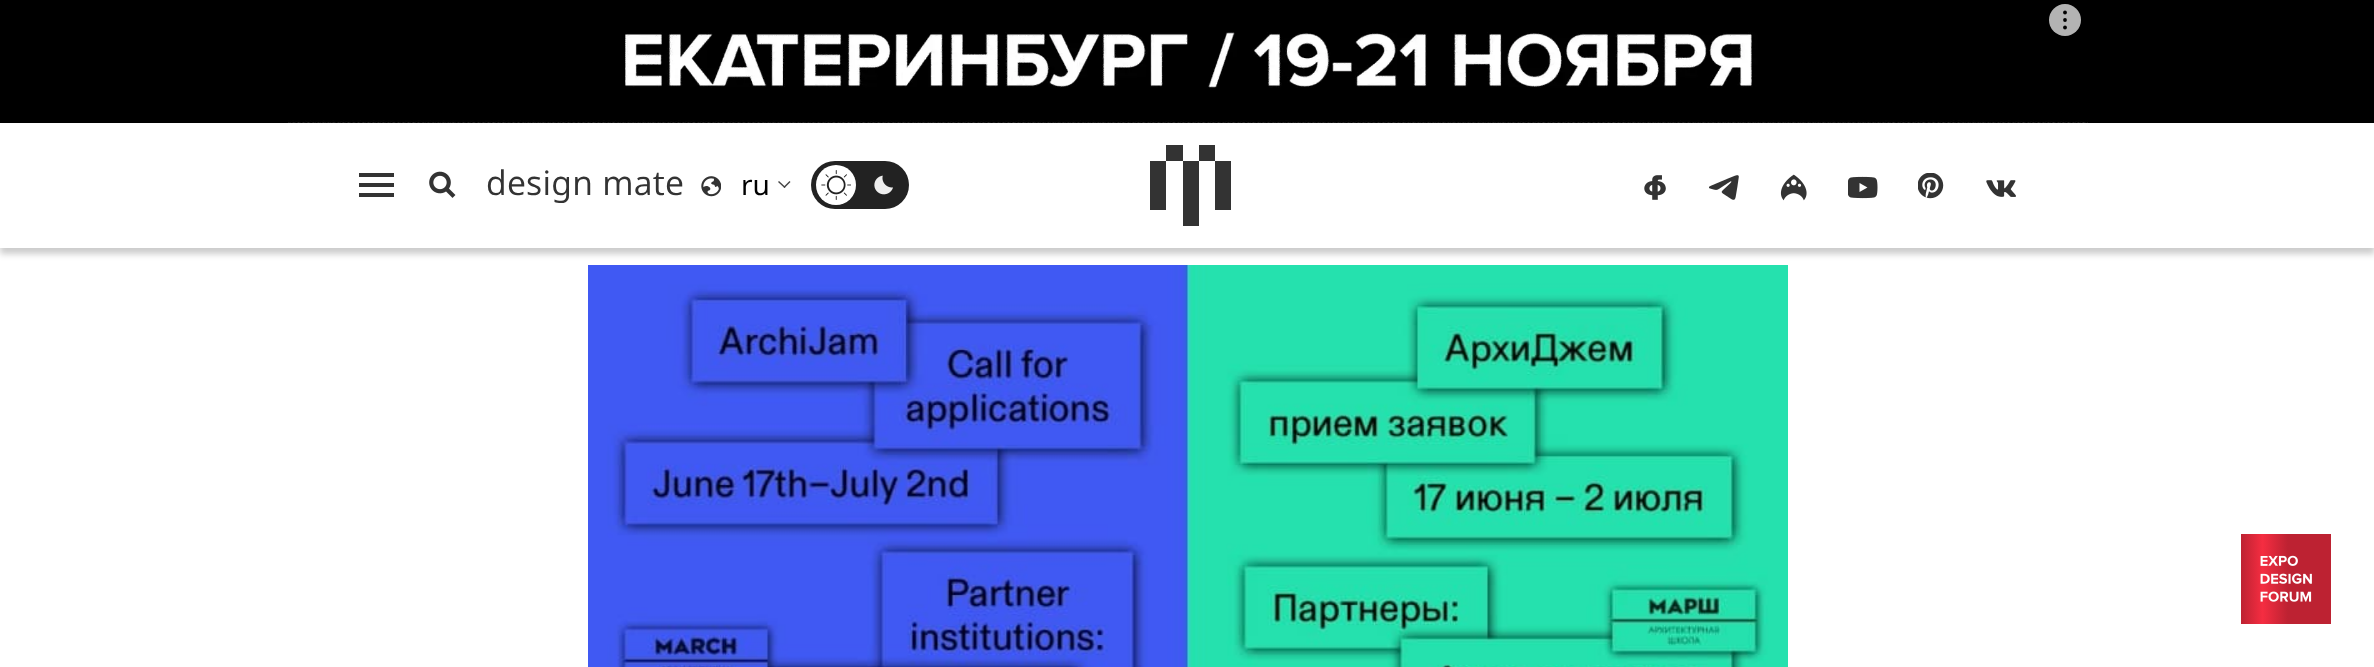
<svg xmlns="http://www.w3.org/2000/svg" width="2374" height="667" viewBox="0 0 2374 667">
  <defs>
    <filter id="blur1" x="-50%" y="-200%" width="200%" height="500%"><feGaussianBlur stdDeviation="3"/></filter>
    <linearGradient id="g1" gradientUnits="userSpaceOnUse" x1="2331" y1="579" x2="2241" y2="579"><stop offset="0.48" stop-color="#bd2232"/><stop offset="0.76" stop-color="#f52d41"/><stop offset="1" stop-color="#bd2232"/></linearGradient>
  </defs>
  <rect width="100%" height="100%" fill="#ffffff"/>
  <rect x="0" y="0" width="2374" height="123" fill="#000000"/>
  <image x="288" y="32" width="1800" height="91" href="img1.png"/>
  <circle cx="2065" cy="20" r="16" fill="#b3b3b3"/>
  <circle cx="2065" cy="12.5" r="1.9" fill="#000000"/>
  <circle cx="2065" cy="20" r="1.9" fill="#000000"/>
  <circle cx="2065" cy="27.5" r="1.9" fill="#000000"/>
  <rect x="0" y="129" width="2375" height="125" fill="#000000" fill-opacity="0.2" filter="url(#blur1)"/>
  <rect x="0" y="124" width="2374" height="124" fill="#ffffff"/>
  <rect x="359" y="173" width="35" height="4" fill="#333333"/>
  <rect x="359" y="183" width="35" height="4" fill="#333333"/>
  <rect x="359" y="193" width="35" height="4" fill="#333333"/>
  <image x="429" y="171" width="27" height="27" href="img2.png"/>
  <text x="486" y="195" font-family="Noto Sans" font-size="33.75" letter-spacing="0.25" fill="#333333">design mate</text>
  <image x="701" y="176" width="20" height="21" href="img3.png"/>
  <text x="741" y="195" font-family="'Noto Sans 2'" font-size="28" fill="#000000">ru</text>
  <path d="M789.5 181L790.5 182L784.5 188L783.5 187Z" fill="#444444"/>
  <path d="M779 181L785.5 187L784.5 188L778 182Z" fill="#444444"/>
  <rect x="811" y="161" width="98" height="48" rx="24" fill="#222222"/>
  <circle cx="836" cy="185" r="20" fill="#ffffff"/>
  <image x="821" y="170" width="30" height="30" href="img4.png"/>
  <image x="874" y="175" width="19" height="20" href="img5.png"/>
  <rect x="1166" y="145" width="17" height="16" fill="#333333"/>
  <rect x="1199" y="145" width="16" height="16" fill="#333333"/>
  <rect x="1150" y="161" width="16" height="49" fill="#333333"/>
  <rect x="1183" y="161" width="16" height="65" fill="#333333"/>
  <rect x="1215" y="161" width="16" height="49" fill="#333333"/>
  <image x="1644" y="175" width="22" height="25" href="img6.png"/>
  <image x="1709" y="175" width="30" height="25" href="img7.png"/>
  <image x="1780" y="174" width="27" height="27" href="img8.png"/>
  <image x="1848" y="176" width="30" height="23" href="img9.png"/>
  <image x="1918" y="173" width="26" height="26" href="img10.png"/>
  <image x="1986" y="180" width="30" height="17" href="img11.png"/>
  <image x="588" y="265" width="1200" height="402" href="img12.png"/>
  <rect x="2241" y="534" width="90" height="90" fill="url(#g1)"/>
  <image x="2260" y="555" width="52" height="47" href="img13.png"/>
</svg>
